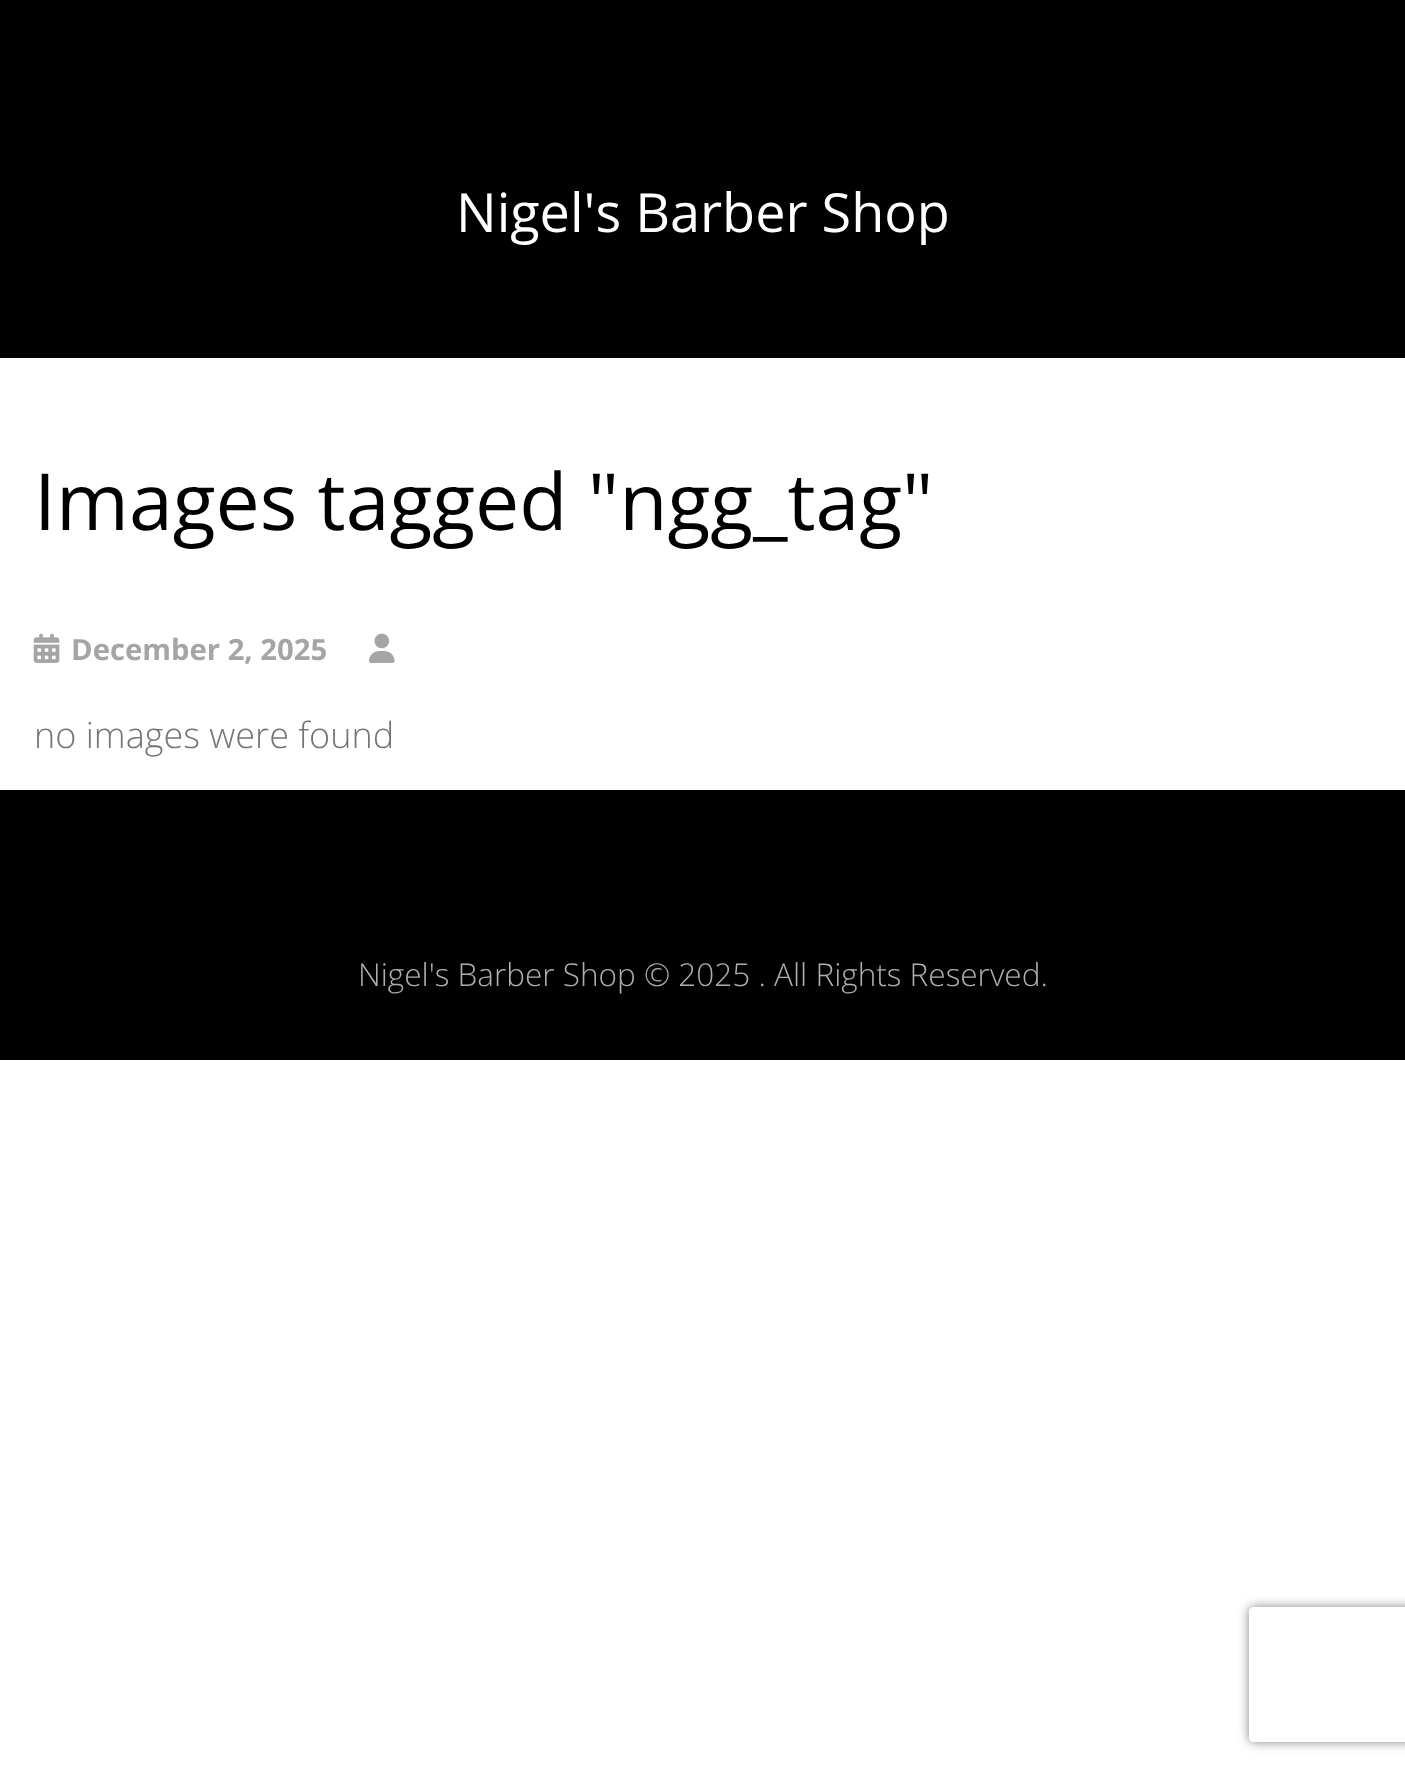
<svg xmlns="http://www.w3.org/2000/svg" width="1405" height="1772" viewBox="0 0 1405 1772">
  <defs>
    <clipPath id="clip1"><path d="M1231 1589H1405V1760H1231ZM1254 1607H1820C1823 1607 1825 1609 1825 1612V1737C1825 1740 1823 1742 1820 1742H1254C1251 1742 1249 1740 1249 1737V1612C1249 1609 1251 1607 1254 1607Z" clip-rule="evenodd"/></clipPath>
    <filter id="blur1" x="-50%" y="-200%" width="200%" height="500%"><feGaussianBlur stdDeviation="5.5"/></filter>
  </defs>
  <rect width="100%" height="100%" fill="#ffffff"/>
  <rect x="0" y="0" width="1405" height="358" fill="#000000"/>
  <text x="456" y="232" font-family="Open Sans" font-size="54" fill="#ffffff">Nigel's Barber Shop</text>
  <text x="34" y="530" font-family="Open Sans" font-size="78.75" fill="#000000">Images tagged "ngg_tag"</text>
  <image x="33" y="633" width="27" height="30" href="img1.png"/>
  <text x="71" y="660" font-family="Open Sans" font-size="29.25" font-weight="bold" fill="#a5a5a5">December 2, 2025</text>
  <image x="369" y="633" width="26" height="30" href="img2.png"/>
  <text x="34" y="748" font-family="Open Sans" font-size="36" font-weight="300" fill="#757575">no images were found</text>
  <rect x="0" y="790" width="1405" height="270" fill="#000000"/>
  <text x="358" y="986" font-family="Open Sans" font-size="31.5" font-weight="300" fill="#afafaf">Nigel's Barber Shop © 2025 . All Rights Reserved.</text>
  <g clip-path="url(#clip1)">
    <rect x="1249" y="1607" width="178" height="135" rx="5" fill="#808080" filter="url(#blur1)"/>
  </g>
</svg>
